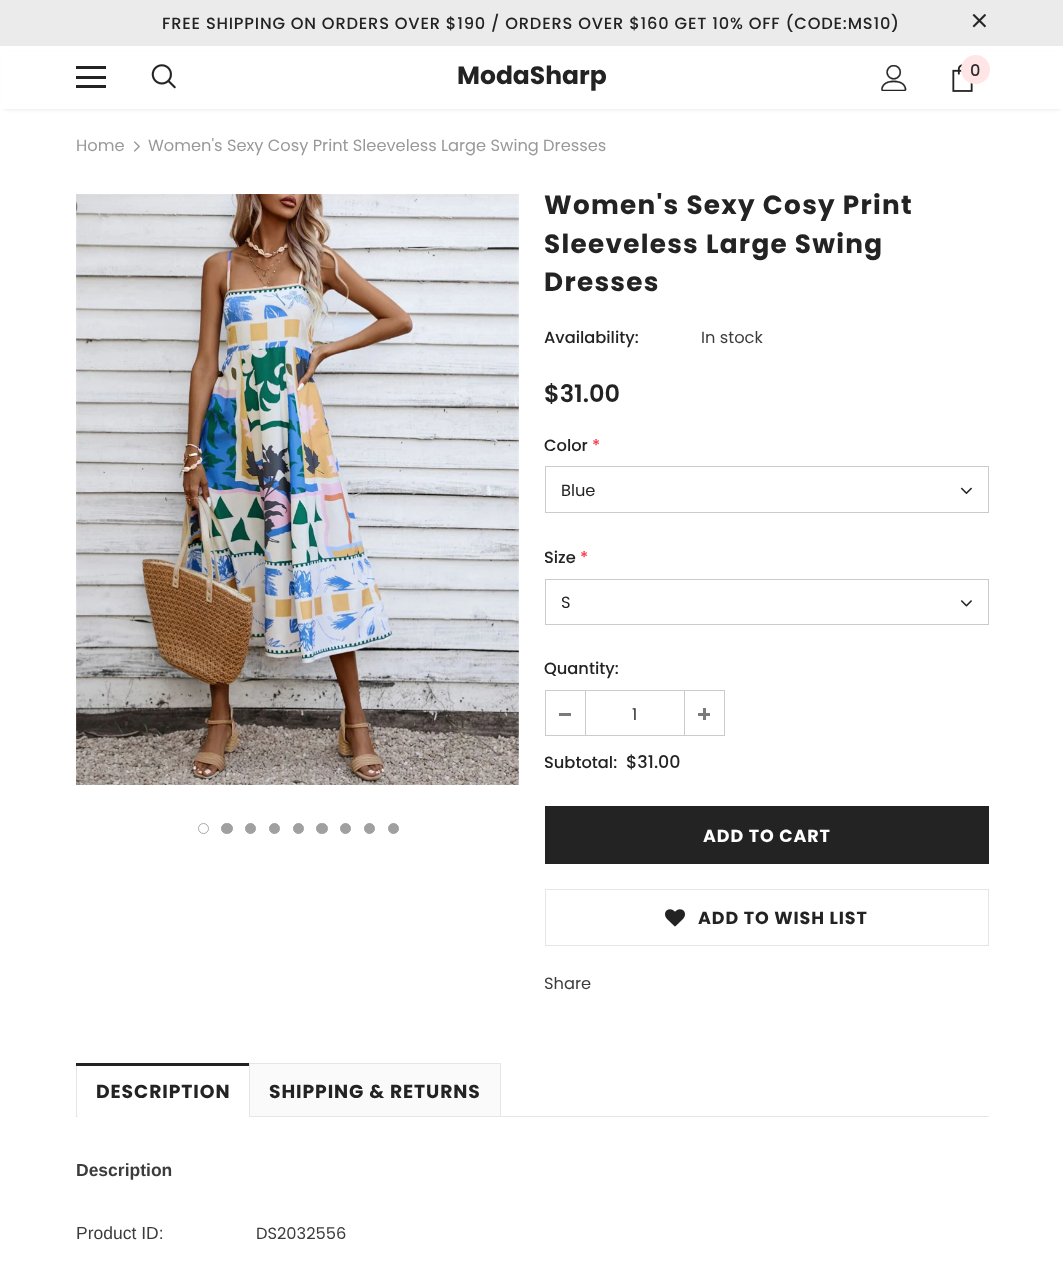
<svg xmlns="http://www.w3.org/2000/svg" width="1063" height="1266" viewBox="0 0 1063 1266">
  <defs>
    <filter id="blur1" x="-50%" y="-200%" width="200%" height="500%"><feGaussianBlur stdDeviation="2"/></filter>
  </defs>
  <rect width="100%" height="100%" fill="#ffffff"/>
  <rect x="0" y="0" width="1063" height="46" fill="#ebebeb"/>
  <text x="162" y="29" font-family="Poppins" font-size="16.25" font-weight="500" letter-spacing="0.8" fill="#232323">FREE SHIPPING ON ORDERS OVER $190 / ORDERS OVER $160 GET 10% OFF (CODE:MS10)</text>
  <image x="972" y="14" width="14" height="14" href="img1.png"/>
  <rect x="4" y="54" width="1056" height="55" fill="#000000" fill-opacity="0.12" filter="url(#blur1)"/>
  <rect x="1" y="51" width="1062" height="58" fill="#ffffff"/>
  <rect x="76" y="66" width="30" height="3" fill="#232323"/>
  <rect x="76" y="76" width="30" height="3" fill="#232323"/>
  <rect x="76" y="85" width="30" height="3" fill="#232323"/>
  <image x="151" y="64" width="25" height="25" href="img2.png"/>
  <text x="457" y="84" font-family="Poppins" font-size="25" font-weight="bold" fill="#232323">ModaSharp</text>
  <image x="881" y="65" width="26" height="26" href="img3.png"/>
  <image x="952" y="64" width="21" height="28" href="img4.png"/>
  <circle cx="975.5" cy="69.5" r="14.5" fill="#ffe5e5"/>
  <text x="970" y="76" font-family="Poppins" font-size="16.25" font-weight="500" fill="#2d2d2d">0</text>
  <text x="76" y="151" font-family="Poppins" font-size="16.25" fill="#999999">Home</text>
  <image x="134" y="141" width="6" height="11" href="img5.png"/>
  <text x="148" y="151" font-family="Poppins" font-size="16.25" fill="#999999">Women's Sexy Cosy Print Sleeveless Large Swing Dresses</text>
  <image x="76" y="194" width="443" height="591" href="img6.png"/>
  <circle cx="203.5" cy="828.5" r="5" fill="none" stroke="#a9a9a9"/>
  <rect x="221.5" y="823.5" width="11" height="10" rx="5" fill="#a0a0a0" stroke="#a0a0a0"/>
  <circle cx="250.5" cy="828.5" r="5" fill="#a0a0a0" stroke="#a0a0a0"/>
  <circle cx="274.5" cy="828.5" r="5" fill="#a0a0a0" stroke="#a0a0a0"/>
  <circle cx="298.5" cy="828.5" r="5" fill="#a0a0a0" stroke="#a0a0a0"/>
  <rect x="316.5" y="823.5" width="11" height="10" rx="5" fill="#a0a0a0" stroke="#a0a0a0"/>
  <circle cx="345.5" cy="828.5" r="5" fill="#a0a0a0" stroke="#a0a0a0"/>
  <circle cx="369.5" cy="828.5" r="5" fill="#a0a0a0" stroke="#a0a0a0"/>
  <circle cx="393.5" cy="828.5" r="5" fill="#a0a0a0" stroke="#a0a0a0"/>
  <text x="544" y="214" font-family="Poppins" font-size="26.25" font-weight="bold" letter-spacing="1.3" fill="#232323">Women's Sexy Cosy Print</text>
  <text x="544" y="253" font-family="Poppins" font-size="26.25" font-weight="bold" letter-spacing="1.3" fill="#232323">Sleeveless Large Swing</text>
  <text x="544" y="291" font-family="Poppins" font-size="26.25" font-weight="bold" letter-spacing="1.3" fill="#232323">Dresses</text>
  <text x="544" y="343" font-family="Poppins" font-size="16.25" font-weight="500" fill="#232323">Availability:</text>
  <text x="701" y="343" font-family="Poppins" font-size="16.25" fill="#3c3c3c">In stock</text>
  <text x="544" y="402" font-family="Poppins" font-size="24" font-weight="600" fill="#232323">$31.00</text>
  <text x="544" y="451" font-family="Poppins" font-size="16.25" font-weight="500" fill="#232323">Color</text>
  <text x="592" y="451" font-family="Poppins" font-size="16.25" font-weight="500" fill="#f23446">*</text>
  <image x="960" y="487" width="12" height="8" href="img7.png"/>
  <rect x="545.5" y="466.5" width="443" height="46" fill="none" stroke="#cbcbcb"/>
  <text x="561" y="496" font-family="Poppins" font-size="16.25" fill="#232323">Blue</text>
  <text x="544" y="563" font-family="Poppins" font-size="16.25" font-weight="500" fill="#232323">Size</text>
  <text x="580" y="563" font-family="Poppins" font-size="16.25" font-weight="500" fill="#f23446">*</text>
  <image x="960" y="600" width="12" height="7" href="img8.png"/>
  <rect x="545.5" y="579.5" width="443" height="45" fill="none" stroke="#cbcbcb"/>
  <text x="561" y="608" font-family="Poppins" font-size="16.25" fill="#232323">S</text>
  <text x="544" y="674" font-family="Poppins" font-size="16.25" font-weight="500" fill="#232323">Quantity:</text>
  <rect x="545.5" y="690.5" width="179" height="45" fill="none" stroke="#cbcbcb"/>
  <rect x="585" y="691" width="1" height="44" fill="#cbcbcb"/>
  <rect x="559" y="713" width="12" height="3" fill="#7b7b7b"/>
  <text x="632" y="720" font-family="Poppins" font-size="16.25" fill="#2d2d2d">1</text>
  <rect x="684" y="691" width="1" height="44" fill="#cbcbcb"/>
  <rect x="698" y="713" width="12" height="3" fill="#7b7b7b"/>
  <rect x="703" y="708" width="3" height="12" fill="#7b7b7b"/>
  <text x="544" y="768" font-family="Poppins" font-size="16.25" font-weight="500" fill="#232323">Subtotal:</text>
  <text x="626" y="768" font-family="Poppins" font-size="17.5" font-weight="500" fill="#232323">$31.00</text>
  <rect x="545" y="806" width="444" height="58" fill="#232323"/>
  <text x="703" y="842" font-family="Poppins" font-size="17.5" font-weight="bold" letter-spacing="0.9" fill="#ffffff">ADD TO CART</text>
  <rect x="545.5" y="889.5" width="443" height="56" fill="none" stroke="#e6e6e6"/>
  <image x="665" y="909" width="20" height="18" href="img9.png"/>
  <text x="698" y="924" font-family="Poppins" font-size="17.5" font-weight="bold" letter-spacing="0.9" fill="#232323">ADD TO WISH LIST</text>
  <text x="544" y="989" font-family="Poppins" font-size="16.25" fill="#3c3c3c">Share</text>
  <rect x="76" y="1116" width="913" height="1" fill="#e6e6e6"/>
  <rect x="76" y="1063" width="1" height="53" fill="#e6e6e6"/>
  <rect x="76" y="1063" width="174" height="3" fill="#232323"/>
  <text x="96" y="1098" font-family="Poppins" font-size="18.75" font-weight="bold" letter-spacing="0.9" fill="#232323">DESCRIPTION</text>
  <rect x="78" y="1116" width="171" height="1" fill="#ffffff"/>
  <rect x="250" y="1064" width="250" height="52" fill="#fafafa"/>
  <rect x="249" y="1063" width="252" height="1" fill="#e6e6e6"/>
  <rect x="500" y="1063" width="1" height="53" fill="#e6e6e6"/>
  <rect x="249" y="1063" width="1" height="53" fill="#e6e6e6"/>
  <text x="269" y="1098" font-family="Poppins" font-size="18.75" font-weight="bold" letter-spacing="0.9" fill="#232323">SHIPPING &amp; RETURNS</text>
  <text x="76" y="1176" font-family="Liberation Sans" font-size="17.5" font-weight="bold" fill="#3c3c3c">Description</text>
  <text x="76" y="1239" font-family="Liberation Sans" font-size="17.5" fill="#3c3c3c">Product ID:</text>
  <text x="256" y="1239" font-family="Poppins" font-size="16.25" fill="#3c3c3c">DS2032556</text>
</svg>
